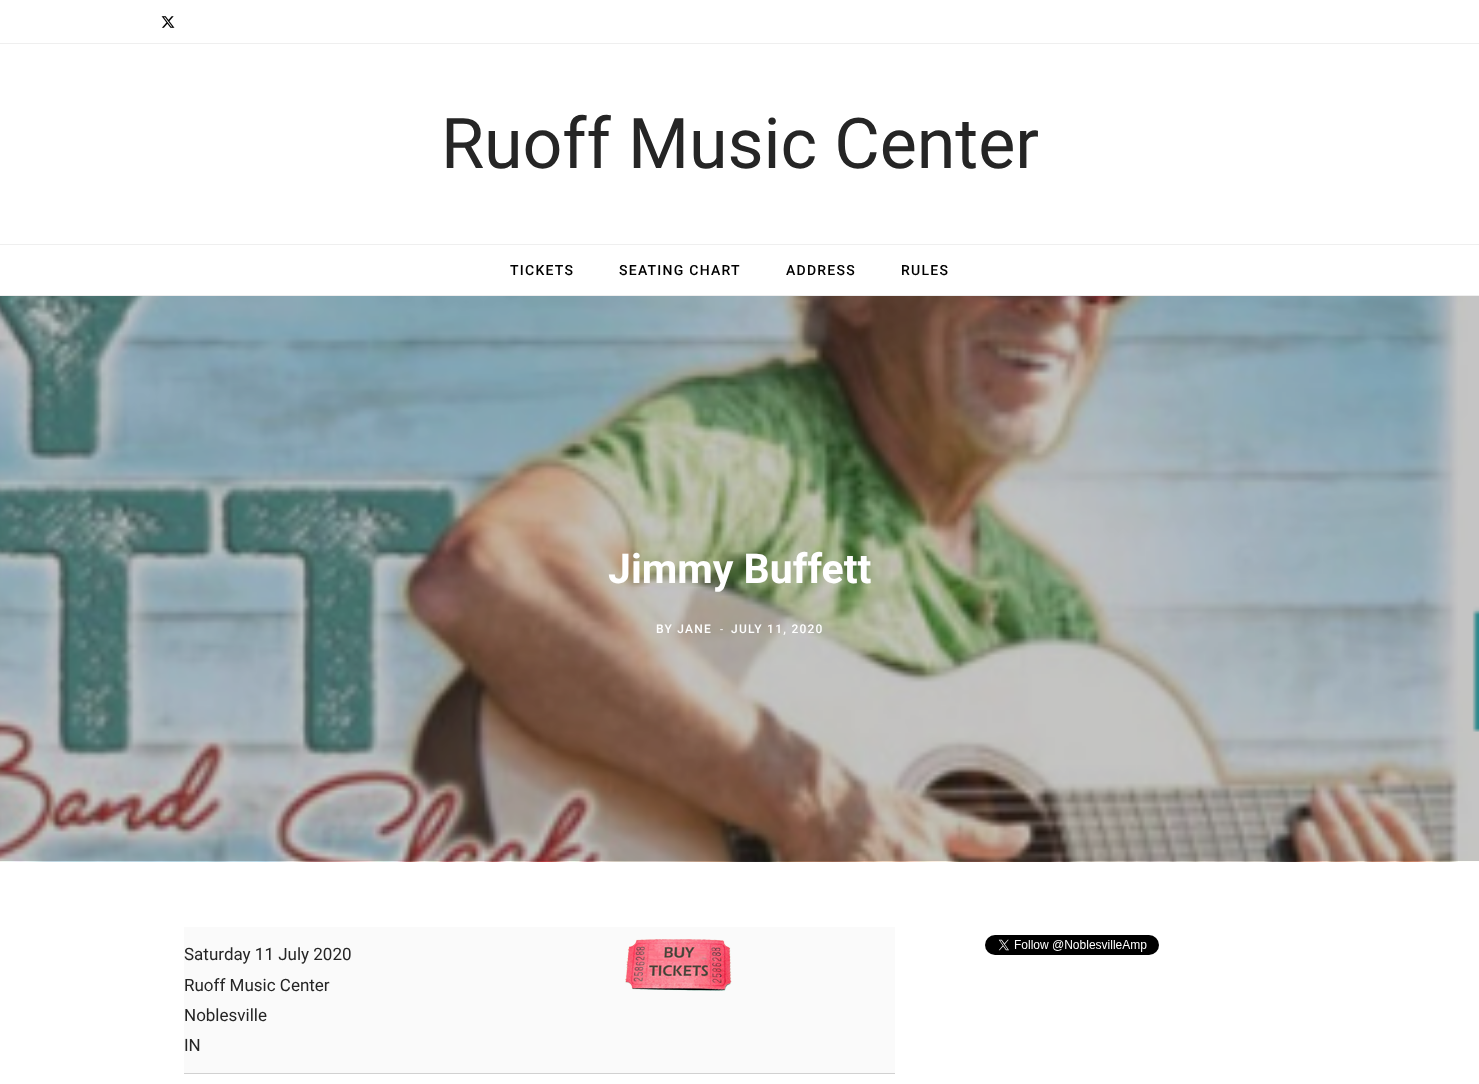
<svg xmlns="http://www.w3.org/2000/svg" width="1479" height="1084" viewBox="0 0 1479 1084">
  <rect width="100%" height="100%" fill="#ffffff"/>
  <rect x="0" y="43" width="1479" height="1" fill="#efefef"/>
  <image x="161" y="16" width="14" height="12" href="img1.png"/>
  <text x="441" y="168" font-family="Roboto" font-size="70" letter-spacing="-0.1" fill="#252525">Ruoff Music Center</text>
  <rect x="0" y="244" width="1479" height="1" fill="#efefef"/>
  <rect x="0" y="295" width="1479" height="1" fill="#efefef"/>
  <text x="510" y="275" font-family="Roboto" font-size="14" font-weight="500" letter-spacing="1.25" fill="#000000">TICKETS</text>
  <text x="619" y="275" font-family="Roboto" font-size="14" font-weight="500" letter-spacing="1.25" fill="#000000">SEATING CHART</text>
  <text x="786" y="275" font-family="Roboto" font-size="14" font-weight="500" letter-spacing="1.25" fill="#000000">ADDRESS</text>
  <text x="901" y="275" font-family="Roboto" font-size="14" font-weight="500" letter-spacing="1.25" fill="#000000">RULES</text>
  <image x="0" y="296" width="1479" height="566" href="img2.png"/>
  <text x="608" y="583" font-family="Roboto" font-size="41" font-weight="bold" fill="#ffffff">Jimmy Buffett</text>
  <text x="656" y="633" font-family="Roboto" font-size="12" font-weight="500" letter-spacing="1.25" fill="#ffffff">BY JANE</text>
  <text x="720" y="633" font-family="Roboto" font-size="11" fill="#ffffff">-</text>
  <text x="731" y="633" font-family="Roboto" font-size="12" font-weight="500" letter-spacing="1.25" fill="#ffffff">JULY 11, 2020</text>
  <image x="985" y="935" width="174" height="20" href="img3.png"/>
  <rect x="184" y="1073" width="711" height="1" fill="#d1d1d1"/>
  <rect x="184" y="927" width="711" height="146" fill="#fafafa"/>
  <image x="625" y="939" width="107" height="52" href="img4.png"/>
  <text x="184" y="960" font-family="Roboto" font-size="17" fill="#252525">Saturday 11 July 2020</text>
  <text x="184" y="991" font-family="Roboto" font-size="17" fill="#252525">Ruoff Music Center</text>
  <text x="184" y="1021" font-family="Roboto" font-size="17" fill="#252525">Noblesville</text>
  <text x="184" y="1051" font-family="Roboto" font-size="17" fill="#252525">IN</text>
</svg>
